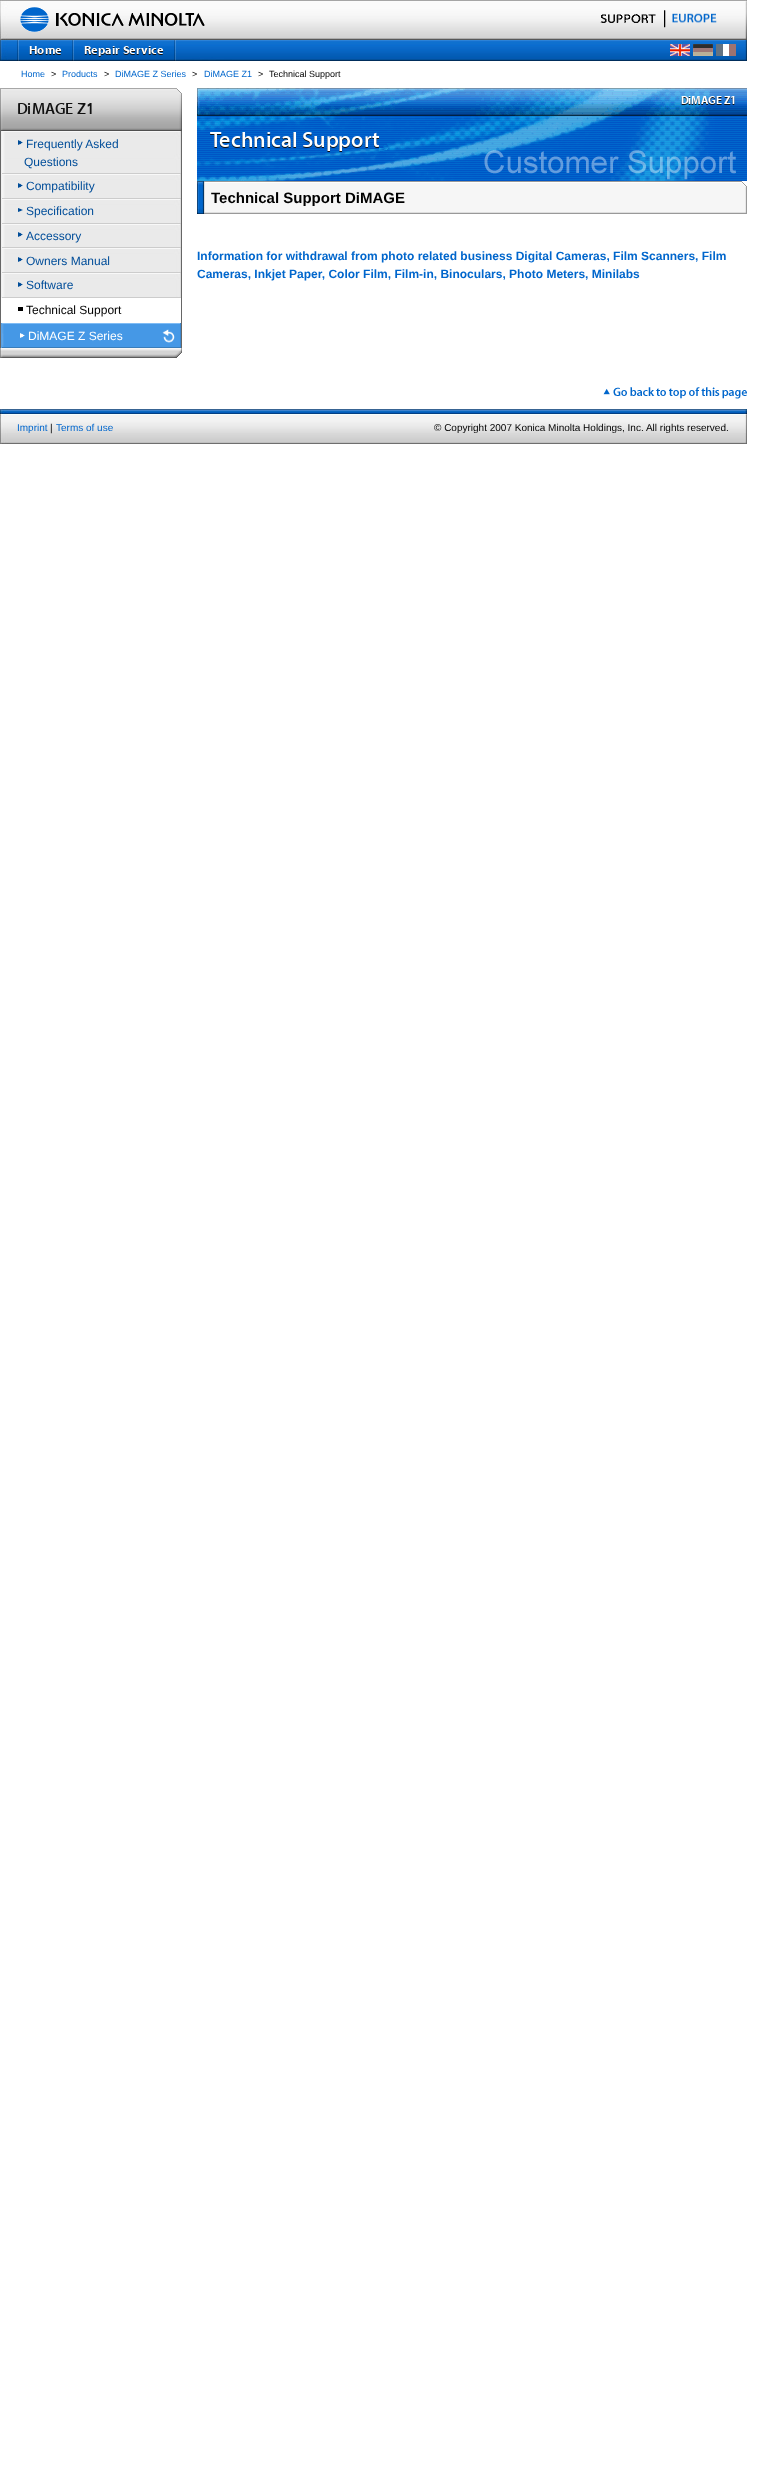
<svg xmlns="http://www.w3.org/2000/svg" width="761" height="2471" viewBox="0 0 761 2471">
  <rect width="100%" height="100%" fill="#ffffff"/>
  <image x="0" y="0" width="747" height="40" href="img1.png"/>
  <image x="20" y="7" width="185" height="25" href="img2.png"/>
  <image x="600" y="14" width="56" height="9" href="img3.png"/>
  <image x="664" y="10" width="2" height="18" href="img4.png"/>
  <image x="672" y="13" width="45" height="10" href="img5.png"/>
  <image x="0" y="40" width="747" height="21" href="img6.png"/>
  <image x="17" y="40" width="2" height="21" href="img7.png"/>
  <image x="19" y="46" width="53" height="15" href="img8.png"/>
  <image x="72" y="40" width="2" height="21" href="img7.png"/>
  <image x="74" y="46" width="100" height="15" href="img9.png"/>
  <image x="174" y="40" width="2" height="21" href="img7.png"/>
  <image x="670" y="44" width="20" height="12" href="img10.png"/>
  <image x="693" y="44" width="20" height="12" href="img11.png"/>
  <image x="716" y="44" width="20" height="12" href="img12.png"/>
  <text x="21" y="77" font-family="Liberation Sans" font-size="9" fill="#0066cc">Home</text>
  <text x="51" y="77" font-family="Liberation Sans" font-size="9" fill="#000000">&gt;</text>
  <text x="62" y="77" font-family="Liberation Sans" font-size="9" fill="#0066cc">Products</text>
  <text x="104" y="77" font-family="Liberation Sans" font-size="9" fill="#000000">&gt;</text>
  <text x="115" y="77" font-family="Liberation Sans" font-size="9" fill="#0066cc">DiMAGE Z Series</text>
  <text x="192" y="77" font-family="Liberation Sans" font-size="9" fill="#000000">&gt;</text>
  <text x="204" y="77" font-family="Liberation Sans" font-size="9" fill="#0066cc">DiMAGE Z1</text>
  <text x="258" y="77" font-family="Liberation Sans" font-size="9" fill="#000000">&gt;</text>
  <text x="269" y="77" font-family="Liberation Sans" font-size="9" fill="#000000">Technical Support</text>
  <image x="0" y="88" width="182" height="43" href="img13.png"/>
  <image x="18" y="103" width="74" height="11" href="img14.png"/>
  <image x="0" y="348" width="182" height="10" href="img15.png"/>
  <rect x="181" y="131" width="1" height="217" fill="#666666"/>
  <rect x="0" y="131" width="1" height="217" fill="#666666"/>
  <image x="2" y="132" width="178" height="41" href="img16.png"/>
  <rect x="1" y="131" width="180" height="1" fill="#f8f8f8"/>
  <rect x="180" y="131" width="1" height="43" fill="#dddddd"/>
  <rect x="1" y="173" width="180" height="1" fill="#cccccc"/>
  <rect x="1" y="131" width="1" height="43" fill="#f0f0f0"/>
  <image x="18" y="140" width="5" height="5" href="img17.png"/>
  <text x="26" y="148" font-family="Liberation Sans" font-size="12" fill="#004d99">Frequently Asked</text>
  <text x="24" y="166" font-family="Liberation Sans" font-size="12" fill="#004d99">Questions</text>
  <image x="2" y="175" width="178" height="23" href="img18.png"/>
  <rect x="1" y="174" width="180" height="1" fill="#f8f8f8"/>
  <rect x="180" y="174" width="1" height="25" fill="#dddddd"/>
  <rect x="1" y="198" width="180" height="1" fill="#cccccc"/>
  <rect x="1" y="174" width="1" height="25" fill="#f0f0f0"/>
  <image x="18" y="183" width="5" height="5" href="img17.png"/>
  <text x="26" y="190" font-family="Liberation Sans" font-size="12" fill="#004d99">Compatibility</text>
  <image x="2" y="200" width="178" height="23" href="img18.png"/>
  <rect x="1" y="199" width="180" height="1" fill="#f8f8f8"/>
  <rect x="180" y="199" width="1" height="25" fill="#dddddd"/>
  <rect x="1" y="223" width="180" height="1" fill="#cccccc"/>
  <rect x="1" y="199" width="1" height="25" fill="#f0f0f0"/>
  <image x="18" y="208" width="5" height="4" href="img19.png"/>
  <text x="26" y="215" font-family="Liberation Sans" font-size="12" fill="#004d99">Specification</text>
  <image x="2" y="225" width="178" height="22" href="img20.png"/>
  <rect x="1" y="224" width="180" height="1" fill="#f8f8f8"/>
  <rect x="180" y="224" width="1" height="24" fill="#dddddd"/>
  <rect x="1" y="247" width="180" height="1" fill="#cccccc"/>
  <rect x="1" y="224" width="1" height="24" fill="#f0f0f0"/>
  <image x="18" y="232" width="5" height="5" href="img17.png"/>
  <text x="26" y="240" font-family="Liberation Sans" font-size="12" fill="#004d99">Accessory</text>
  <image x="2" y="249" width="178" height="23" href="img18.png"/>
  <rect x="1" y="248" width="180" height="1" fill="#f8f8f8"/>
  <rect x="180" y="248" width="1" height="25" fill="#dddddd"/>
  <rect x="1" y="272" width="180" height="1" fill="#cccccc"/>
  <rect x="1" y="248" width="1" height="25" fill="#f0f0f0"/>
  <image x="18" y="257" width="5" height="5" href="img17.png"/>
  <text x="26" y="265" font-family="Liberation Sans" font-size="12" fill="#004d99">Owners Manual</text>
  <image x="2" y="274" width="178" height="23" href="img18.png"/>
  <rect x="1" y="273" width="180" height="1" fill="#f8f8f8"/>
  <rect x="180" y="273" width="1" height="25" fill="#dddddd"/>
  <rect x="1" y="297" width="180" height="1" fill="#cccccc"/>
  <rect x="1" y="273" width="1" height="25" fill="#f0f0f0"/>
  <image x="18" y="282" width="5" height="5" href="img17.png"/>
  <text x="26" y="289" font-family="Liberation Sans" font-size="12" fill="#004d99">Software</text>
  <rect x="18" y="307" width="5" height="4" fill="#000000"/>
  <text x="26" y="314" font-family="Liberation Sans" font-size="12" fill="#000000">Technical Support</text>
  <rect x="4" y="324" width="176" height="23" fill="#4598e6"/>
  <image x="2" y="324" width="2" height="23" href="img21.png"/>
  <rect x="1" y="323" width="180" height="1" fill="#7fbcf5"/>
  <rect x="180" y="323" width="1" height="25" fill="#3e87cb"/>
  <rect x="1" y="347" width="180" height="1" fill="#397dba"/>
  <rect x="1" y="323" width="1" height="25" fill="#59a2e7"/>
  <image x="20" y="333" width="5" height="5" href="img22.png"/>
  <image x="162" y="329" width="13" height="14" href="img23.png"/>
  <text x="28" y="340" font-family="Liberation Sans" font-size="12" fill="#ffffff">DiMAGE Z Series</text>
  <image x="197" y="88" width="550" height="28" href="img24.png"/>
  <image x="197" y="116" width="550" height="65" href="img25.png"/>
  <image x="205" y="181" width="542" height="33" href="img26.png"/>
  <image x="197" y="181" width="8" height="33" href="img27.png"/>
  <text x="211" y="203" font-family="Liberation Sans" font-size="15" font-weight="bold" fill="#000000">Technical Support DiMAGE</text>
  <image x="742" y="181" width="5" height="32" href="img28.png"/>
  <text x="197" y="260" font-family="Liberation Sans" font-size="12" font-weight="bold" fill="#0066cc">Information for withdrawal from photo related business Digital Cameras, Film Scanners, Film</text>
  <text x="197" y="278" font-family="Liberation Sans" font-size="12" font-weight="bold" fill="#0066cc">Cameras, Inkjet Paper, Color Film, Film-in, Binoculars, Photo Meters, Minilabs</text>
  <image x="603" y="387" width="144" height="12" href="img29.png"/>
  <image x="0" y="409" width="747" height="35" href="img30.png"/>
  <text x="17" y="431" font-family="Liberation Sans" font-size="10" fill="#0066cc">Imprint</text>
  <text x="50" y="431" font-family="Liberation Sans" font-size="10" fill="#000000">|</text>
  <text x="56" y="431" font-family="Liberation Sans" font-size="10" fill="#0066cc">Terms of use</text>
  <text x="434" y="431" font-family="Liberation Sans" font-size="10" fill="#000000">© Copyright 2007 Konica Minolta Holdings, Inc. All rights reserved.</text>
</svg>
